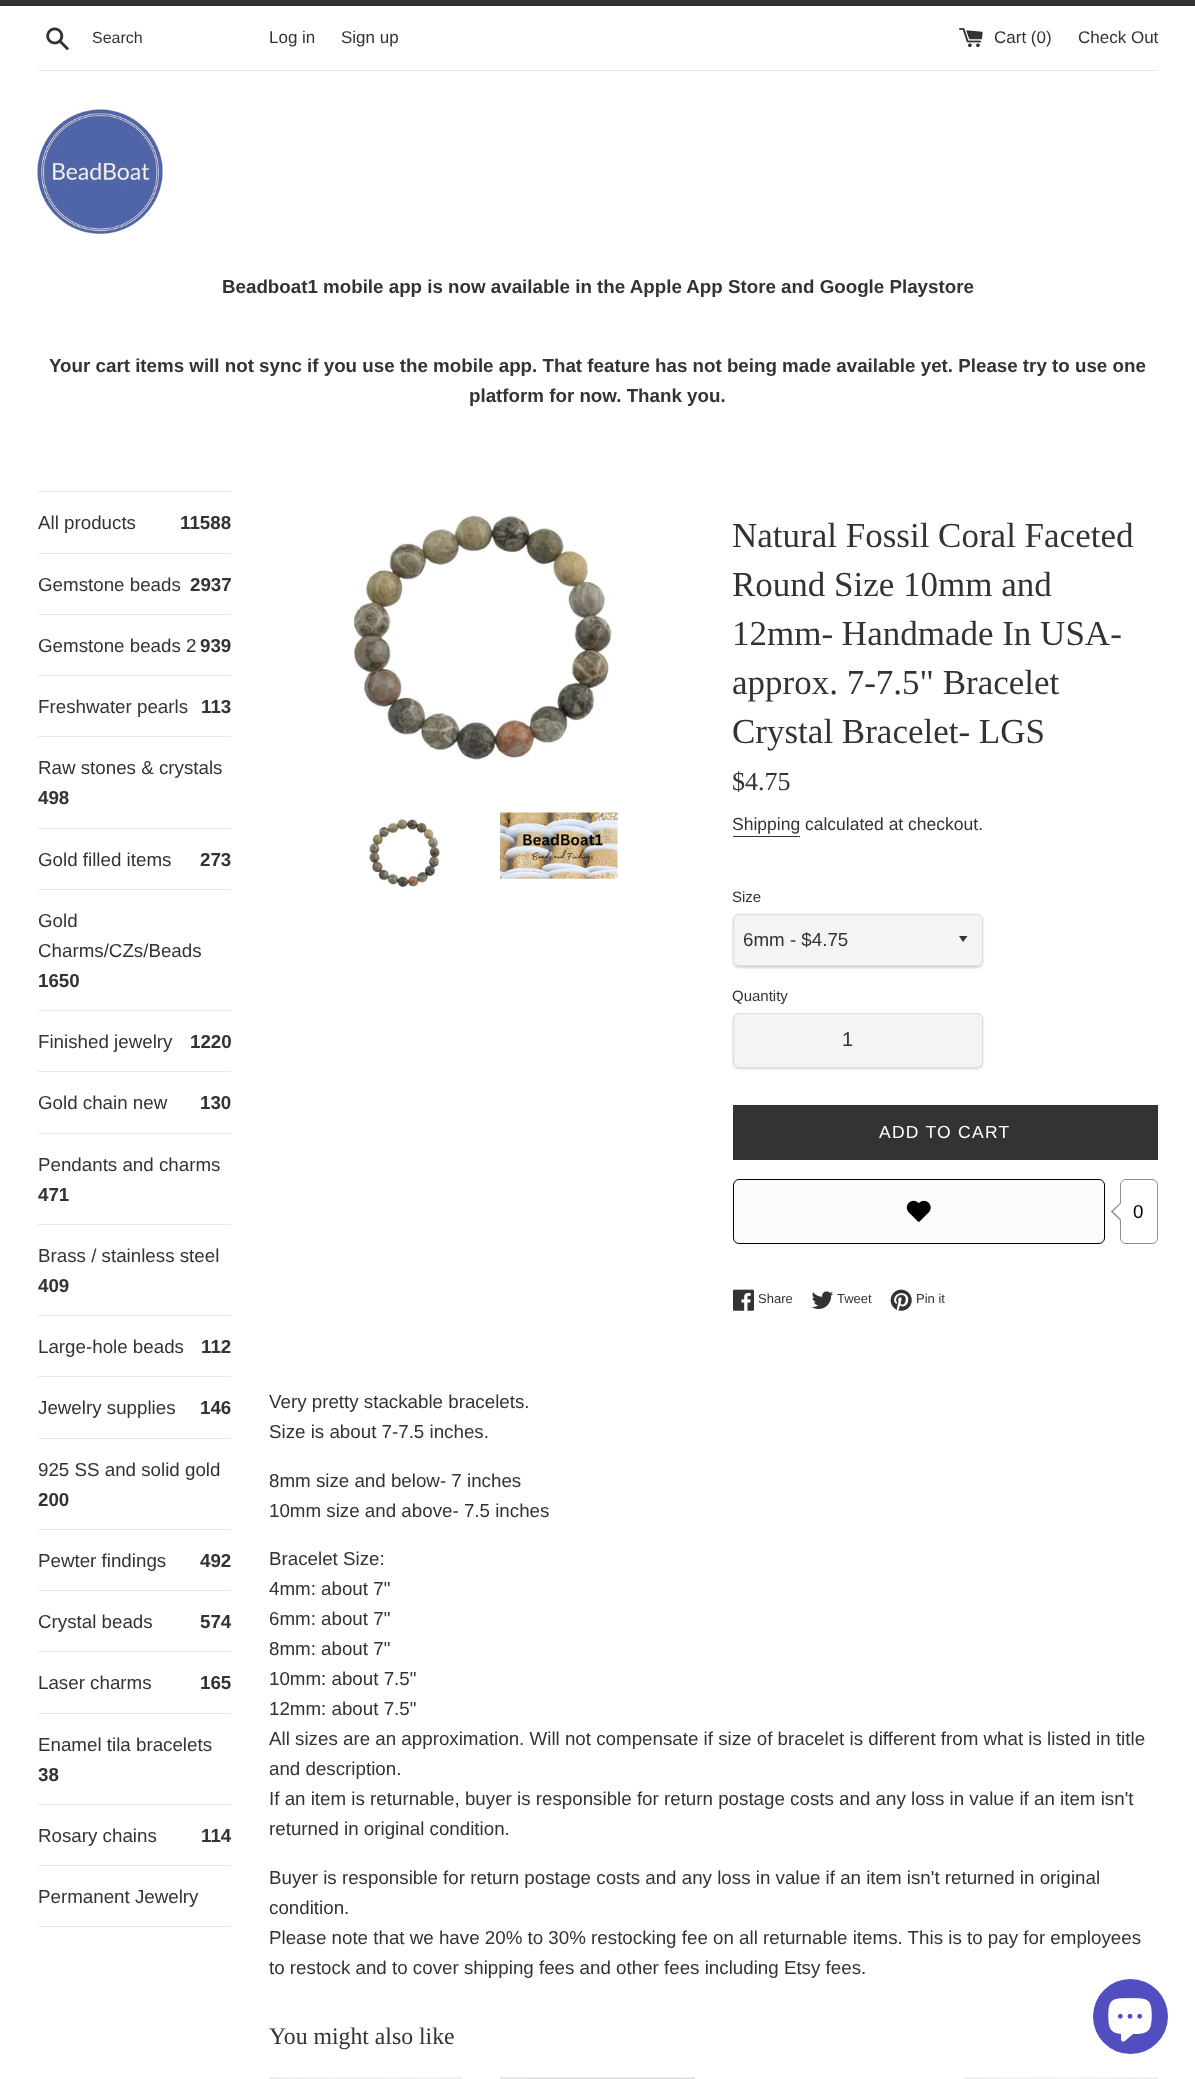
<svg xmlns="http://www.w3.org/2000/svg" width="1195" height="2079" viewBox="0 0 1195 2079">
  <defs>
    <filter id="blur1" x="-50%" y="-200%" width="200%" height="500%"><feGaussianBlur stdDeviation="1"/></filter>
  </defs>
  <rect width="100%" height="100%" fill="#ffffff"/>
  <rect x="0" y="0" width="1195" height="6" fill="#333333"/>
  <image x="46" y="27" width="23" height="23" href="img1.png"/>
  <text x="92" y="43" font-family="Liberation Sans" font-size="16" fill="#333333">Search</text>
  <text x="269" y="43" font-family="Liberation Sans" font-size="17" fill="#333333">Log in</text>
  <text x="341" y="43" font-family="Liberation Sans" font-size="17" fill="#333333">Sign up</text>
  <image x="959" y="28" width="24" height="20" href="img2.png"/>
  <text x="994" y="43" font-family="Liberation Sans" font-size="17" fill="#333333">Cart (0)</text>
  <text x="1078" y="43" font-family="Liberation Sans" font-size="17" fill="#333333">Check Out</text>
  <rect x="38" y="70" width="1120" height="1" fill="#e8e8e8"/>
  <image x="37" y="108" width="126" height="126" href="img3.png"/>
  <text x="222" y="293" font-family="Liberation Sans" font-size="18.75" font-weight="bold" fill="#333333">Beadboat1 mobile app is now available in the Apple App Store and Google Playstore</text>
  <text x="49" y="372" font-family="Liberation Sans" font-size="18.75" font-weight="bold" fill="#333333">Your cart items will not sync if you use the mobile app. That feature has not being made available yet. Please try to use one</text>
  <text x="469" y="402" font-family="Liberation Sans" font-size="18.75" font-weight="bold" fill="#333333">platform for now. Thank you.</text>
  <rect x="38" y="491" width="193" height="1" fill="#e8e8e8"/>
  <rect x="38" y="553" width="193" height="1" fill="#e8e8e8"/>
  <text x="38" y="529" font-family="Liberation Sans" font-size="18.75" fill="#333333">All products</text>
  <text x="180" y="529" font-family="Liberation Sans" font-size="18.75" font-weight="bold" fill="#333333">11588</text>
  <rect x="38" y="614" width="193" height="1" fill="#e8e8e8"/>
  <text x="38" y="591" font-family="Liberation Sans" font-size="18.75" fill="#333333">Gemstone beads</text>
  <text x="190" y="591" font-family="Liberation Sans" font-size="18.75" font-weight="bold" fill="#333333">2937</text>
  <rect x="38" y="675" width="193" height="1" fill="#e8e8e8"/>
  <text x="38" y="652" font-family="Liberation Sans" font-size="18.75" fill="#333333">Gemstone beads 2</text>
  <text x="200" y="652" font-family="Liberation Sans" font-size="18.75" font-weight="bold" fill="#333333">939</text>
  <rect x="38" y="736" width="193" height="1" fill="#e8e8e8"/>
  <text x="38" y="713" font-family="Liberation Sans" font-size="18.75" fill="#333333">Freshwater pearls</text>
  <text x="201" y="713" font-family="Liberation Sans" font-size="18.75" font-weight="bold" fill="#333333">113</text>
  <rect x="38" y="828" width="193" height="1" fill="#e8e8e8"/>
  <text x="38" y="774" font-family="Liberation Sans" font-size="18.75" fill="#333333">Raw stones &amp; crystals</text>
  <text x="38" y="804" font-family="Liberation Sans" font-size="18.75" font-weight="bold" fill="#333333">498</text>
  <rect x="38" y="889" width="193" height="1" fill="#e8e8e8"/>
  <text x="38" y="866" font-family="Liberation Sans" font-size="18.75" fill="#333333">Gold filled items</text>
  <text x="200" y="866" font-family="Liberation Sans" font-size="18.75" font-weight="bold" fill="#333333">273</text>
  <rect x="38" y="1010" width="193" height="1" fill="#e8e8e8"/>
  <text x="38" y="927" font-family="Liberation Sans" font-size="18.75" fill="#333333">Gold</text>
  <text x="38" y="957" font-family="Liberation Sans" font-size="18.75" fill="#333333">Charms/CZs/Beads</text>
  <text x="38" y="987" font-family="Liberation Sans" font-size="18.75" font-weight="bold" fill="#333333">1650</text>
  <rect x="38" y="1071" width="193" height="1" fill="#e8e8e8"/>
  <text x="38" y="1048" font-family="Liberation Sans" font-size="18.75" fill="#333333">Finished jewelry</text>
  <text x="190" y="1048" font-family="Liberation Sans" font-size="18.75" font-weight="bold" fill="#333333">1220</text>
  <rect x="38" y="1133" width="193" height="1" fill="#e8e8e8"/>
  <text x="38" y="1109" font-family="Liberation Sans" font-size="18.75" fill="#333333">Gold chain new</text>
  <text x="200" y="1109" font-family="Liberation Sans" font-size="18.75" font-weight="bold" fill="#333333">130</text>
  <rect x="38" y="1224" width="193" height="1" fill="#e8e8e8"/>
  <text x="38" y="1171" font-family="Liberation Sans" font-size="18.75" fill="#333333">Pendants and charms</text>
  <text x="38" y="1201" font-family="Liberation Sans" font-size="18.75" font-weight="bold" fill="#333333">471</text>
  <rect x="38" y="1315" width="193" height="1" fill="#e8e8e8"/>
  <text x="38" y="1262" font-family="Liberation Sans" font-size="18.75" fill="#333333">Brass / stainless steel</text>
  <text x="38" y="1292" font-family="Liberation Sans" font-size="18.75" font-weight="bold" fill="#333333">409</text>
  <rect x="38" y="1376" width="193" height="1" fill="#e8e8e8"/>
  <text x="38" y="1353" font-family="Liberation Sans" font-size="18.75" fill="#333333">Large-hole beads</text>
  <text x="201" y="1353" font-family="Liberation Sans" font-size="18.75" font-weight="bold" fill="#333333">112</text>
  <rect x="38" y="1438" width="193" height="1" fill="#e8e8e8"/>
  <text x="38" y="1414" font-family="Liberation Sans" font-size="18.75" fill="#333333">Jewelry supplies</text>
  <text x="200" y="1414" font-family="Liberation Sans" font-size="18.75" font-weight="bold" fill="#333333">146</text>
  <rect x="38" y="1529" width="193" height="1" fill="#e8e8e8"/>
  <text x="38" y="1476" font-family="Liberation Sans" font-size="18.75" fill="#333333">925 SS and solid gold</text>
  <text x="38" y="1506" font-family="Liberation Sans" font-size="18.75" font-weight="bold" fill="#333333">200</text>
  <rect x="38" y="1590" width="193" height="1" fill="#e8e8e8"/>
  <text x="38" y="1567" font-family="Liberation Sans" font-size="18.75" fill="#333333">Pewter findings</text>
  <text x="200" y="1567" font-family="Liberation Sans" font-size="18.75" font-weight="bold" fill="#333333">492</text>
  <rect x="38" y="1651" width="193" height="1" fill="#e8e8e8"/>
  <text x="38" y="1628" font-family="Liberation Sans" font-size="18.75" fill="#333333">Crystal beads</text>
  <text x="200" y="1628" font-family="Liberation Sans" font-size="18.75" font-weight="bold" fill="#333333">574</text>
  <rect x="38" y="1713" width="193" height="1" fill="#e8e8e8"/>
  <text x="38" y="1689" font-family="Liberation Sans" font-size="18.75" fill="#333333">Laser charms</text>
  <text x="200" y="1689" font-family="Liberation Sans" font-size="18.75" font-weight="bold" fill="#333333">165</text>
  <rect x="38" y="1804" width="193" height="1" fill="#e8e8e8"/>
  <text x="38" y="1751" font-family="Liberation Sans" font-size="18.75" fill="#333333">Enamel tila bracelets</text>
  <text x="38" y="1781" font-family="Liberation Sans" font-size="18.75" font-weight="bold" fill="#333333">38</text>
  <rect x="38" y="1865" width="193" height="1" fill="#e8e8e8"/>
  <text x="38" y="1842" font-family="Liberation Sans" font-size="18.75" fill="#333333">Rosary chains</text>
  <text x="201" y="1842" font-family="Liberation Sans" font-size="18.75" font-weight="bold" fill="#333333">114</text>
  <rect x="38" y="1926" width="193" height="1" fill="#e8e8e8"/>
  <text x="38" y="1903" font-family="Liberation Sans" font-size="18.75" fill="#333333">Permanent Jewelry</text>
  <image x="352" y="515" width="261" height="245" href="img4.png"/>
  <image x="369" y="819" width="71" height="69" href="img5.png"/>
  <image x="500" y="812" width="118" height="67" href="img6.png"/>
  <text x="732" y="547" font-family="Liberation Serif" font-size="35" fill="#333333">Natural Fossil Coral Faceted</text>
  <text x="732" y="596" font-family="Liberation Serif" font-size="35" fill="#333333">Round Size 10mm and</text>
  <text x="732" y="645" font-family="Liberation Serif" font-size="35" fill="#333333">12mm- Handmade In USA-</text>
  <text x="732" y="694" font-family="Liberation Serif" font-size="35" fill="#333333">approx. 7-7.5" Bracelet</text>
  <text x="732" y="743" font-family="Liberation Serif" font-size="35" fill="#333333">Crystal Bracelet- LGS</text>
  <text x="732" y="790" font-family="Liberation Serif" font-size="26" fill="#333333">$4.75</text>
  <text x="732" y="830" font-family="Liberation Sans" font-size="17.5" fill="#333333">Shipping calculated at checkout.</text>
  <rect x="733" y="836" width="67" height="1" fill="#333333"/>
  <text x="732" y="902" font-family="Liberation Sans" font-size="15" fill="#333333">Size</text>
  <rect x="733" y="915" width="250" height="53" rx="6" fill="#000000" fill-opacity="0.17" filter="url(#blur1)"/>
  <rect x="733" y="914" width="250" height="52" rx="6" fill="#f4f4f4"/>
  <path d="M959 936L963 942L967.5 936Z" fill="#333333"/>
  <rect x="733.5" y="914.5" width="249" height="51" rx="5.5" fill="none" stroke="#dddddd"/>
  <text x="743" y="946" font-family="Liberation Sans" font-size="18.75" fill="#333333">6mm - $4.75</text>
  <text x="732" y="1001" font-family="Liberation Sans" font-size="15" fill="#333333">Quantity</text>
  <rect x="733" y="1014" width="250" height="55" rx="6" fill="#000000" fill-opacity="0.17" filter="url(#blur1)"/>
  <rect x="733.5" y="1013.5" width="249" height="54" rx="5.5" fill="#f4f4f4" stroke="#dddddd"/>
  <text x="842" y="1046" font-family="Liberation Sans" font-size="20" fill="#333333">1</text>
  <rect x="733" y="1105" width="425" height="55" fill="#333333"/>
  <text x="879" y="1138" font-family="Liberation Sans" font-size="17.5" letter-spacing="1.25" fill="#ffffff">ADD TO CART</text>
  <rect x="733.5" y="1179.5" width="371" height="64" rx="5.5" fill="#fcfcfc" stroke="#000000"/>
  <image x="906" y="1200" width="25" height="22" href="img7.png"/>
  <rect x="1120.5" y="1179.5" width="37" height="64" rx="5.5" fill="none" stroke="#8e8e8e"/>
  <path d="M1120 1203L1129 1211.5L1120 1220.5L1111 1211.5Z" fill="#ffffff"/>
  <path d="M1112 1210.5L1121 1219.5L1120 1220.5L1111 1211.5Z" fill="#8e8e8e"/>
  <path d="M1120 1203L1121 1203.5L1112 1212.5L1111 1211.5Z" fill="#8e8e8e"/>
  <text x="1133" y="1218" font-family="Liberation Sans" font-size="18.75" fill="#000000">0</text>
  <image x="733" y="1289" width="21" height="22" href="img8.png"/>
  <text x="758" y="1303" font-family="Liberation Sans" font-size="13" fill="#333333">Share</text>
  <image x="811" y="1291" width="23" height="18" href="img9.png"/>
  <text x="837" y="1303" font-family="Liberation Sans" font-size="13" fill="#333333">Tweet</text>
  <image x="890" y="1289" width="22" height="22" href="img10.png"/>
  <text x="916" y="1303" font-family="Liberation Sans" font-size="13" fill="#333333">Pin it</text>
  <text x="269" y="1408" font-family="Liberation Sans" font-size="18.75" fill="#333333">Very pretty stackable bracelets.</text>
  <text x="269" y="1438" font-family="Liberation Sans" font-size="18.75" fill="#333333">Size is about 7-7.5 inches.</text>
  <text x="269" y="1487" font-family="Liberation Sans" font-size="18.75" fill="#333333">8mm size and below- 7 inches</text>
  <text x="269" y="1517" font-family="Liberation Sans" font-size="18.75" fill="#333333">10mm size and above- 7.5 inches</text>
  <text x="269" y="1565" font-family="Liberation Sans" font-size="18.75" fill="#333333">Bracelet Size:</text>
  <text x="269" y="1595" font-family="Liberation Sans" font-size="18.75" fill="#333333">4mm: about 7"</text>
  <text x="269" y="1625" font-family="Liberation Sans" font-size="18.75" fill="#333333">6mm: about 7"</text>
  <text x="269" y="1655" font-family="Liberation Sans" font-size="18.75" fill="#333333">8mm: about 7"</text>
  <text x="269" y="1685" font-family="Liberation Sans" font-size="18.75" fill="#333333">10mm: about 7.5"</text>
  <text x="269" y="1715" font-family="Liberation Sans" font-size="18.75" fill="#333333">12mm: about 7.5"</text>
  <text x="269" y="1745" font-family="Liberation Sans" font-size="18.75" fill="#333333">All sizes are an approximation. Will not compensate if size of bracelet is different from what is listed in title</text>
  <text x="269" y="1775" font-family="Liberation Sans" font-size="18.75" fill="#333333">and description.</text>
  <text x="269" y="1805" font-family="Liberation Sans" font-size="18.75" fill="#333333">If an item is returnable, buyer is responsible for return postage costs and any loss in value if an item isn't</text>
  <text x="269" y="1835" font-family="Liberation Sans" font-size="18.75" fill="#333333">returned in original condition.</text>
  <text x="269" y="1884" font-family="Liberation Sans" font-size="18.75" fill="#333333">Buyer is responsible for return postage costs and any loss in value if an item isn't returned in original</text>
  <text x="269" y="1914" font-family="Liberation Sans" font-size="18.75" fill="#333333">condition.</text>
  <text x="269" y="1944" font-family="Liberation Sans" font-size="18.75" fill="#333333">Please note that we have 20% to 30% restocking fee on all returnable items. This is to pay for employees</text>
  <text x="269" y="1974" font-family="Liberation Sans" font-size="18.75" fill="#333333">to restock and to cover shipping fees and other fees including Etsy fees.</text>
  <text x="269" y="2044" font-family="Liberation Serif" font-size="23.75" fill="#333333">You might also like</text>
  <image x="269" y="2077" width="194" height="2" href="img11.png"/>
  <image x="500" y="2077" width="195" height="2" href="img12.png"/>
  <image x="963" y="2077" width="195" height="2" href="img13.png"/>
  <circle cx="1130.5" cy="2016.5" r="37.5" fill="#514ebf"/>
  <image x="1108" y="1998" width="44" height="44" href="img14.png"/>
</svg>
